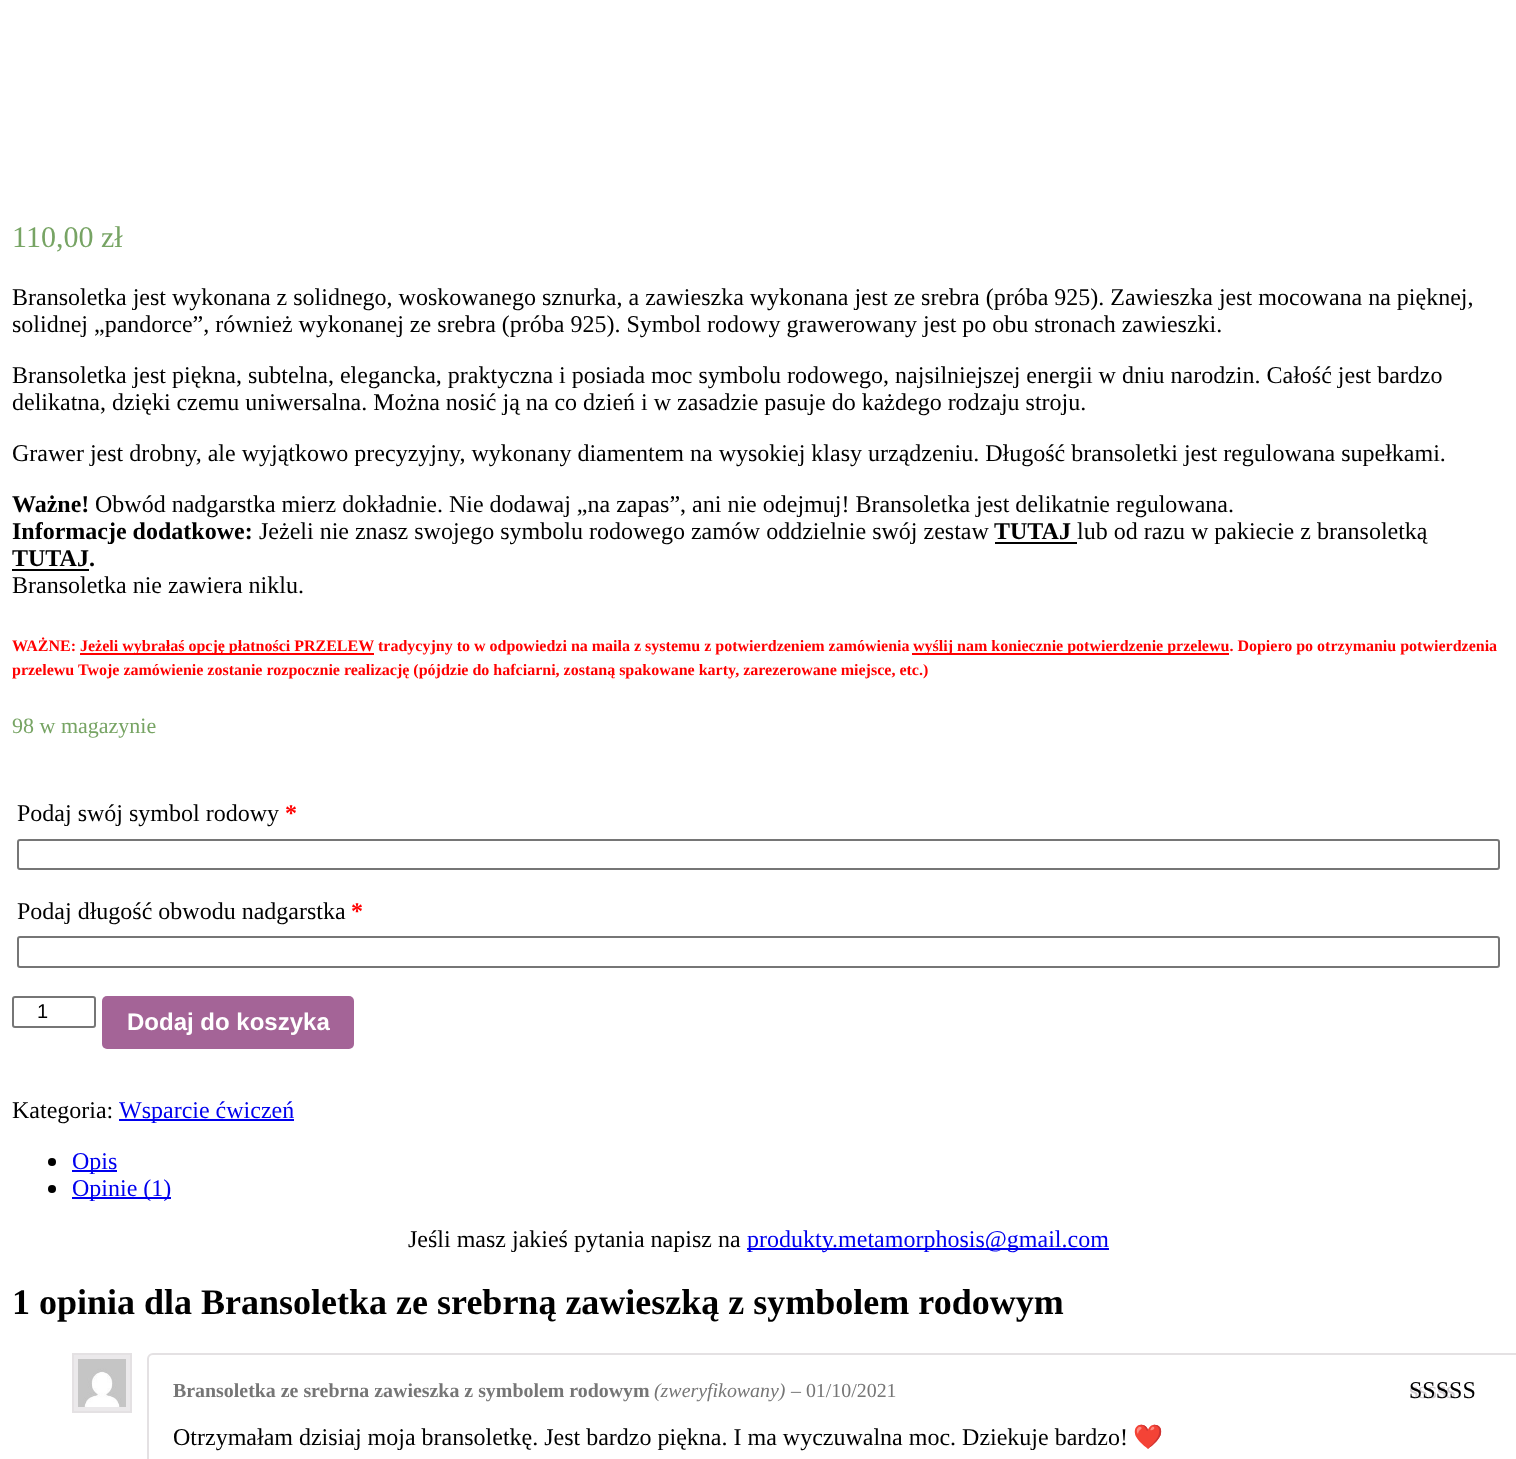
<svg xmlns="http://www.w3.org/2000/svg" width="1516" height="1459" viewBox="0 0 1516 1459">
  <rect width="100%" height="100%" fill="#ffffff"/>
  <text x="12" y="247" font-family="Liberation Serif" font-size="30" fill="#77a464">110,00 zł</text>
  <text x="12" y="305" font-family="Liberation Serif" font-size="24" fill="#000000">Bransoletka jest wykonana z solidnego, woskowanego sznurka, a zawieszka wykonana jest ze srebra (próba 925). Zawieszka jest mocowana na pięknej,</text>
  <text x="12" y="332" font-family="Liberation Serif" font-size="24" fill="#000000">solidnej „pandorce”, również wykonanej ze srebra (próba 925). Symbol rodowy grawerowany jest po obu stronach zawieszki.</text>
  <text x="12" y="383" font-family="Liberation Serif" font-size="24" fill="#000000">Bransoletka jest piękna, subtelna, elegancka, praktyczna i posiada moc symbolu rodowego, najsilniejszej energii w dniu narodzin. Całość jest bardzo</text>
  <text x="12" y="410" font-family="Liberation Serif" font-size="24" fill="#000000">delikatna, dzięki czemu uniwersalna. Można nosić ją na co dzień i w zasadzie pasuje do każdego rodzaju stroju.</text>
  <text x="12" y="461" font-family="Liberation Serif" font-size="24" fill="#000000">Grawer jest drobny, ale wyjątkowo precyzyjny, wykonany diamentem na wysokiej klasy urządzeniu. Długość bransoletki jest regulowana supełkami.</text>
  <text x="12" y="512" font-family="Liberation Serif" font-size="24" font-weight="bold" fill="#000000">Ważne!</text>
  <text x="95" y="512" font-family="Liberation Serif" font-size="24" fill="#000000">Obwód nadgarstka mierz dokładnie. Nie dodawaj „na zapas”, ani nie odejmuj! Bransoletka jest delikatnie regulowana.</text>
  <text x="12" y="539" font-family="Liberation Serif" font-size="24" font-weight="bold" fill="#000000">Informacje dodatkowe:</text>
  <text x="259" y="539" font-family="Liberation Serif" font-size="24" fill="#000000">Jeżeli nie znasz swojego symbolu rodowego zamów oddzielnie swój zestaw</text>
  <text x="994" y="539" font-family="Liberation Serif" font-size="24" font-weight="bold" fill="#000000">TUTAJ</text>
  <text x="1077" y="539" font-family="Liberation Serif" font-size="24" fill="#000000">lub od razu w pakiecie z bransoletką</text>
  <rect x="995" y="542" width="82" height="2" fill="#000000"/>
  <text x="12" y="566" font-family="Liberation Serif" font-size="24" font-weight="bold" fill="#000000">TUTAJ.</text>
  <rect x="12" y="569" width="77" height="2" fill="#000000"/>
  <text x="12" y="593" font-family="Liberation Serif" font-size="24" fill="#000000">Bransoletka nie zawiera niklu.</text>
  <text x="12" y="651" font-family="Liberation Serif" font-size="16" font-weight="bold" fill="#ff0000">WAŻNE:</text>
  <rect x="80" y="653" width="294" height="2" fill="#ff0000"/>
  <text x="80" y="651" font-family="Liberation Serif" font-size="16" font-weight="bold" fill="#ff0000">Jeżeli wybrałaś opcję płatności PRZELEW</text>
  <text x="378" y="651" font-family="Liberation Serif" font-size="16" font-weight="bold" fill="#ff0000">tradycyjny to w odpowiedzi na maila z systemu z potwierdzeniem zamówienia</text>
  <rect x="912" y="653" width="317" height="2" fill="#ff0000"/>
  <text x="913" y="651" font-family="Liberation Serif" font-size="16" font-weight="bold" fill="#ff0000">wyślij nam koniecznie potwierdzenie przelewu. Dopiero po otrzymaniu potwierdzenia</text>
  <text x="12" y="675" font-family="Liberation Serif" font-size="16" font-weight="bold" fill="#ff0000">przelewu Twoje zamówienie zostanie rozpocznie realizację (pójdzie do hafciarni, zostaną spakowane karty, zarezerowane miejsce, etc.)</text>
  <text x="12" y="733" font-family="Liberation Serif" font-size="22" fill="#77a464">98 w magazynie</text>
  <text x="17" y="821" font-family="Liberation Serif" font-size="24" fill="#000000">Podaj swój symbol rodowy</text>
  <text x="285" y="821" font-family="Liberation Serif" font-size="24" font-weight="bold" fill="#ff0000">*</text>
  <rect x="18" y="840" width="1481" height="29" rx="2" fill="none" stroke="#767676" stroke-width="2"/>
  <text x="17" y="919" font-family="Liberation Serif" font-size="24" fill="#000000">Podaj długość obwodu nadgarstka</text>
  <text x="351" y="919" font-family="Liberation Serif" font-size="24" font-weight="bold" fill="#ff0000">*</text>
  <rect x="18" y="937" width="1481" height="30" rx="2" fill="none" stroke="#767676" stroke-width="2"/>
  <rect x="13" y="997" width="82" height="30" rx="2" fill="none" stroke="#767676" stroke-width="2"/>
  <text x="37" y="1018" font-family="Liberation Sans" font-size="20" fill="#000000">1</text>
  <rect x="102" y="996" width="252" height="53" rx="5" fill="#a46497"/>
  <text x="127" y="1030" font-family="Liberation Sans" font-size="24" font-weight="bold" fill="#ffffff">Dodaj do koszyka</text>
  <text x="12" y="1118" font-family="Liberation Serif" font-size="24" fill="#000000">Kategoria:</text>
  <rect x="119" y="1119" width="175" height="2" fill="#0000ee"/>
  <text x="119" y="1118" font-family="Liberation Serif" font-size="24" fill="#0000ee">Wsparcie ćwiczeń</text>
  <circle cx="52" cy="1162" r="4" fill="#000000"/>
  <rect x="72" y="1170" width="45" height="2" fill="#0000ee"/>
  <text x="72" y="1169" font-family="Liberation Serif" font-size="24" fill="#0000ee">Opis</text>
  <circle cx="52" cy="1189" r="4" fill="#000000"/>
  <rect x="72" y="1197" width="99" height="2" fill="#0000ee"/>
  <text x="72" y="1196" font-family="Liberation Serif" font-size="24" fill="#0000ee">Opinie (1)</text>
  <text x="408" y="1247" font-family="Liberation Serif" font-size="24" fill="#000000">Jeśli masz jakieś pytania napisz na</text>
  <rect x="747" y="1248" width="362" height="2" fill="#0000ee"/>
  <text x="747" y="1247" font-family="Liberation Serif" font-size="24" fill="#0000ee">produkty.metamorphosis@gmail.com</text>
  <text x="12" y="1314" font-family="Liberation Serif" font-size="36" font-weight="bold" fill="#000000">1 opinia dla Bransoletka ze srebrną zawieszką z symbolem rodowym</text>
  <rect x="73" y="1354" width="58" height="58" fill="#ebe9eb" stroke="#e4e1e3" stroke-width="2"/>
  <image x="78" y="1359" width="48" height="48" href="img1.png"/>
  <rect x="148" y="1354" width="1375" height="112" rx="5" fill="none" stroke="#e4e1e3" stroke-width="2"/>
  <text x="173" y="1397" font-family="Liberation Serif" font-size="19.9" font-weight="bold" fill="#767676">Bransoletka ze srebrna zawieszka z symbolem rodowym</text>
  <text x="654" y="1397" font-family="Liberation Serif" font-size="19.9" font-style="italic" fill="#767676">(zweryfikowany)</text>
  <text x="791" y="1397" font-family="Liberation Serif" font-size="19.9" fill="#767676">– 01/10/2021</text>
  <text x="1409" y="1398" font-family="Liberation Serif" font-size="24" fill="#d3ced2">sssss</text>
  <text x="1409" y="1398" font-family="Liberation Serif" font-size="24" fill="#000000">SSSSS</text>
  <text x="173" y="1445" font-family="Liberation Serif" font-size="24" fill="#000000">Otrzymałam dzisiaj moja bransoletkę. Jest bardzo piękna. I ma wyczuwalna moc. Dziekuje bardzo!</text>
  <text x="1133" y="1445" font-family="Noto Color Emoji" font-size="24" fill="#000000">❤️</text>
</svg>
